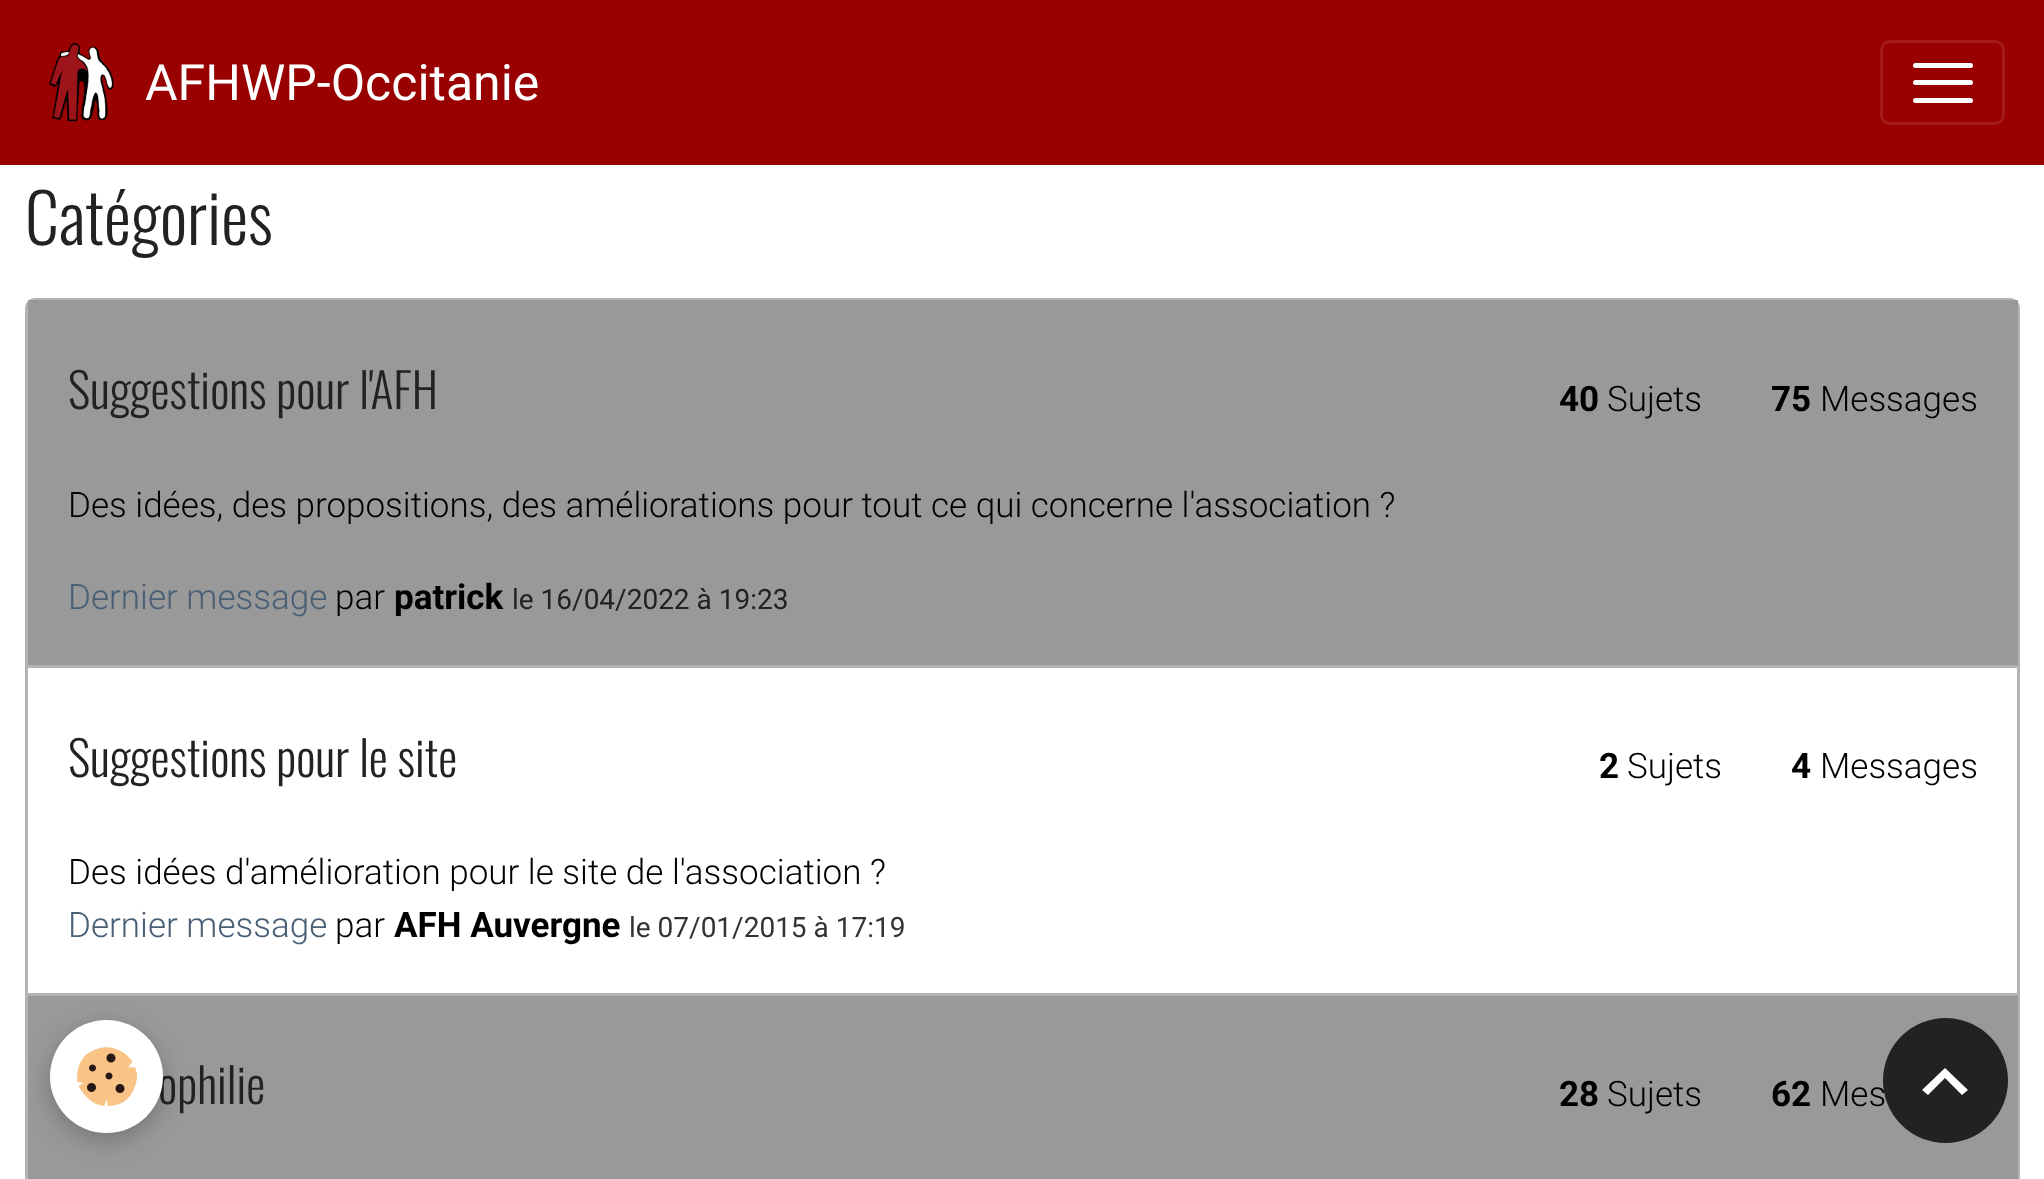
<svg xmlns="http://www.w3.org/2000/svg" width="2044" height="1179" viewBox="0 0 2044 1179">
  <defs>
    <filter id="blur1" x="-50%" y="-200%" width="200%" height="500%"><feGaussianBlur stdDeviation="12.5"/></filter>
  </defs>
  <rect width="100%" height="100%" fill="#ffffff"/>
  <rect x="0" y="0" width="2044" height="165" fill="#990000"/>
  <image x="49" y="42" width="65" height="80" href="img1.png"/>
  <text x="145" y="100" font-family="Roboto" font-size="50" fill="#ffffff">AFHWP-Occitanie</text>
  <rect x="1881.5" y="41.5" width="122" height="82" rx="8.5" fill="none" stroke="#a31a1a" stroke-width="3"/>
  <rect x="1913" y="63" width="60" height="5" rx="2.5" fill="#ffffff"/>
  <rect x="1913" y="80" width="60" height="5" rx="2.5" fill="#ffffff"/>
  <rect x="1913" y="98" width="60" height="5" rx="2.5" fill="#ffffff"/>
  <text x="25" y="245" font-family="Oswald" font-size="68" font-weight="300" fill="#222222">Catégories</text>
  <rect x="26.5" y="299.5" width="1992" height="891" rx="8.5" fill="none" stroke="#b3b3b3" stroke-width="3"/>
  <rect x="28" y="300" width="1990" height="365" fill="#999999"/>
  <text x="68" y="409" font-family="Oswald" font-size="48" font-weight="300" fill="#222222">Suggestions pour l'AFH</text>
  <text x="1559" y="411" font-family="Roboto" font-size="35" font-weight="bold" fill="#000000">40</text>
  <text x="1607" y="411" font-family="Roboto" font-size="35" font-weight="300" fill="#000000">Sujets</text>
  <text x="1771" y="411" font-family="Roboto" font-size="35" font-weight="bold" fill="#000000">75</text>
  <text x="1820" y="411" font-family="Roboto" font-size="35" font-weight="300" fill="#000000">Messages</text>
  <text x="68" y="517" font-family="Roboto" font-size="35" font-weight="300" fill="#000000">Des idées, des propositions, des améliorations pour tout ce qui concerne l'association ?</text>
  <text x="68" y="609" font-family="Roboto" font-size="35" font-weight="300" fill="#495f75">Dernier message</text>
  <text x="335" y="609" font-family="Roboto" font-size="35" font-weight="300" fill="#000000">par</text>
  <text x="394" y="609" font-family="Roboto" font-size="35" font-weight="bold" fill="#000000">patrick</text>
  <text x="512" y="609" font-family="Roboto" font-size="28" fill="#222222">le 16/04/2022 à 19:23</text>
  <rect x="28" y="665" width="1990" height="3" fill="#b3b3b3"/>
  <text x="68" y="777" font-family="Oswald" font-size="48" font-weight="300" fill="#222222">Suggestions pour le site</text>
  <text x="1599" y="778" font-family="Roboto" font-size="35" font-weight="bold" fill="#000000">2</text>
  <text x="1627" y="778" font-family="Roboto" font-size="35" font-weight="300" fill="#000000">Sujets</text>
  <text x="1791" y="778" font-family="Roboto" font-size="35" font-weight="bold" fill="#000000">4</text>
  <text x="1820" y="778" font-family="Roboto" font-size="35" font-weight="300" fill="#000000">Messages</text>
  <text x="68" y="884" font-family="Roboto" font-size="35" font-weight="300" fill="#000000">Des idées d'amélioration pour le site de l'association ?</text>
  <text x="68" y="937" font-family="Roboto" font-size="35" font-weight="300" fill="#495f75">Dernier message</text>
  <text x="335" y="937" font-family="Roboto" font-size="35" font-weight="300" fill="#000000">par</text>
  <text x="394" y="937" font-family="Roboto" font-size="35" font-weight="bold" fill="#000000">AFH Auvergne</text>
  <text x="629" y="937" font-family="Roboto" font-size="28" fill="#333333">le 07/01/2015 à 17:19</text>
  <rect x="28" y="996" width="1990" height="183" fill="#999999"/>
  <rect x="28" y="993" width="1990" height="3" fill="#b3b3b3"/>
  <text x="158" y="1104" font-family="Oswald" font-size="48" font-weight="300" fill="#222222">ophilie</text>
  <text x="1559" y="1106" font-family="Roboto" font-size="35" font-weight="bold" fill="#000000">28</text>
  <text x="1607" y="1106" font-family="Roboto" font-size="35" font-weight="300" fill="#000000">Sujets</text>
  <text x="1771" y="1106" font-family="Roboto" font-size="35" font-weight="bold" fill="#000000">62</text>
  <text x="1820" y="1106" font-family="Roboto" font-size="35" font-weight="300" fill="#000000">Mes</text>
  <rect x="50" y="1028" width="113" height="112" rx="56" fill="#000000" fill-opacity="0.24" filter="url(#blur1)"/>
  <circle cx="106.5" cy="1076.5" r="56.5" fill="#ffffff"/>
  <image x="77" y="1047" width="60" height="59" href="img2.png"/>
  <circle cx="1945.5" cy="1080.5" r="62.5" fill="#222222"/>
  <path d="M1945 1068L1968 1090L1962 1095L1945 1078L1928 1095L1922 1090Z" fill="#ffffff"/>
</svg>
